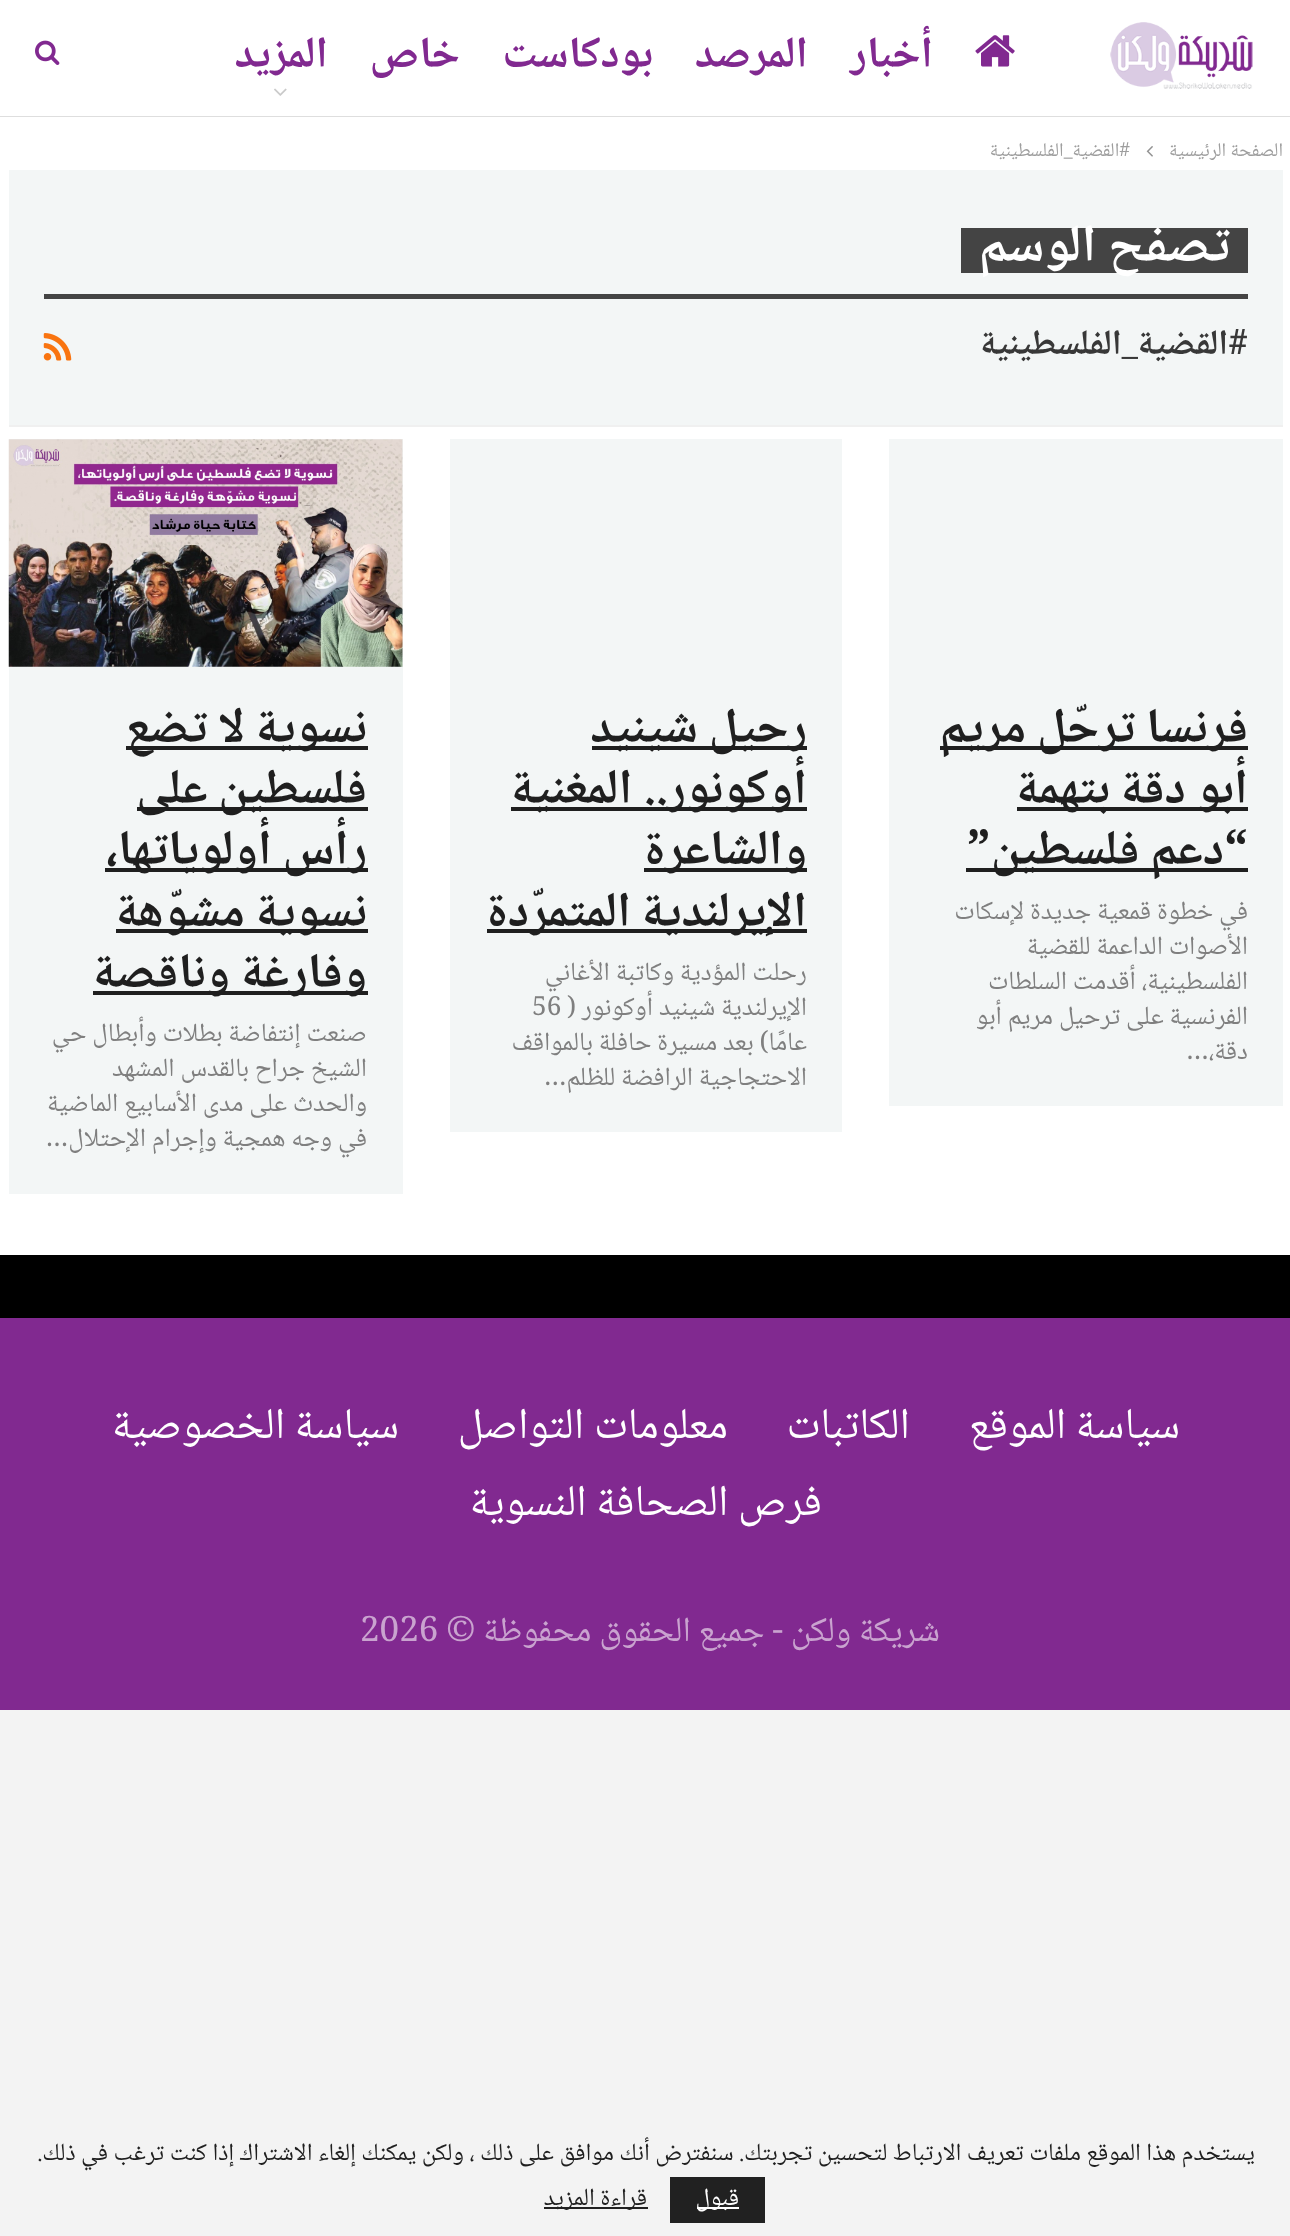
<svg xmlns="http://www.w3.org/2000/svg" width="1290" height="2236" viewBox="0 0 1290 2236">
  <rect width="100%" height="100%" fill="#f3f3f3"/>
  <rect x="0" y="0" width="1290" height="116" fill="#ffffff"/>
  <rect x="0" y="116" width="1290" height="1" fill="#dedede"/>
  <image x="1110" y="22" width="143" height="67" href="img1.png"/>
  <image x="975" y="35" width="40" height="32" href="img2.png"/>
  <text x="933" y="67" font-family="Noto Naskh Arabic" font-size="43.75" font-weight="bold" direction="rtl" fill="#812990">أخبار</text>
  <text x="808" y="67" font-family="Noto Naskh Arabic" font-size="43.75" font-weight="bold" direction="rtl" fill="#812990">المرصد</text>
  <text x="653" y="67" font-family="Noto Naskh Arabic" font-size="43.75" font-weight="bold" direction="rtl" fill="#812990">بودكاست</text>
  <text x="460" y="67" font-family="Noto Naskh Arabic" font-size="43.75" font-weight="bold" direction="rtl" fill="#812990">خاص</text>
  <text x="328" y="67" font-family="Noto Naskh Arabic" font-size="43.75" font-weight="bold" direction="rtl" fill="#812990">المزيد</text>
  <image x="274" y="88" width="13" height="8" href="img3.png"/>
  <image x="35" y="40" width="25" height="25" href="img4.png"/>
  <rect x="0" y="117" width="1290" height="1138" fill="#ffffff"/>
  <text x="1283" y="156" font-family="Noto Naskh Arabic" font-size="19.25" direction="rtl" fill="#9e9e9e">الصفحة الرئيسية</text>
  <image x="1146" y="146" width="7" height="11" href="img5.png"/>
  <text x="1130" y="156" font-family="Noto Naskh Arabic" font-size="19.25" direction="rtl" fill="#9e9e9e">#القضية_الفلسطينية</text>
  <rect x="9" y="170" width="1274" height="255" fill="#f3f6f6"/>
  <rect x="9" y="425" width="1274" height="2" fill="#f0f0f0"/>
  <rect x="961" y="228" width="287" height="45" fill="#444444"/>
  <text x="1230" y="261" font-family="Noto Naskh Arabic" font-size="52.5" font-weight="bold" direction="rtl" fill="#ffffff">تصفح الوسم</text>
  <rect x="44" y="294" width="1204" height="5" fill="#444444"/>
  <text x="1248" y="354" font-family="Noto Naskh Arabic" font-size="35" font-weight="bold" direction="rtl" fill="#383838">#القضية_الفلسطينية</text>
  <image x="43" y="333" width="29" height="28" href="img6.png"/>
  <rect x="889" y="439" width="394" height="667" fill="#f3f6f6"/>
  <rect x="940" y="746" width="308" height="4" fill="#1f1f1f"/>
  <text x="1248" y="742" font-family="Noto Naskh Arabic" font-size="49" font-weight="bold" direction="rtl" fill="#1f1f1f">فرنسا ترحّل مريم</text>
  <rect x="1017" y="807" width="231" height="4" fill="#1f1f1f"/>
  <text x="1248" y="803" font-family="Noto Naskh Arabic" font-size="49" font-weight="bold" direction="rtl" fill="#1f1f1f">أبو دقة بتهمة</text>
  <rect x="966" y="868" width="282" height="4" fill="#1f1f1f"/>
  <text x="1248" y="864" font-family="Noto Naskh Arabic" font-size="49" font-weight="bold" direction="rtl" fill="#1f1f1f">“دعم فلسطين”</text>
  <text x="1248" y="919" font-family="Noto Naskh Arabic" font-size="26.25" direction="rtl" fill="#7f7f7f">في خطوة قمعية جديدة لإسكات</text>
  <text x="1248" y="954" font-family="Noto Naskh Arabic" font-size="26.25" direction="rtl" fill="#7f7f7f">الأصوات الداعمة للقضية</text>
  <text x="1248" y="989" font-family="Noto Naskh Arabic" font-size="26.25" direction="rtl" fill="#7f7f7f">الفلسطينية، أقدمت السلطات</text>
  <text x="1248" y="1024" font-family="Noto Naskh Arabic" font-size="26.25" direction="rtl" fill="#7f7f7f">الفرنسية على ترحيل مريم أبو</text>
  <text x="1248" y="1059" font-family="Noto Naskh Arabic" font-size="26.25" direction="rtl" fill="#7f7f7f">دقة،…</text>
  <rect x="450" y="439" width="392" height="693" fill="#f3f6f6"/>
  <rect x="592" y="746" width="215" height="4" fill="#1f1f1f"/>
  <text x="807" y="742" font-family="Noto Naskh Arabic" font-size="49" font-weight="bold" direction="rtl" fill="#1f1f1f">رحيل شينيد</text>
  <rect x="511" y="807" width="296" height="4" fill="#1f1f1f"/>
  <text x="807" y="803" font-family="Noto Naskh Arabic" font-size="49" font-weight="bold" direction="rtl" fill="#1f1f1f">أوكونور.. المغنية</text>
  <rect x="644" y="868" width="163" height="4" fill="#1f1f1f"/>
  <text x="807" y="864" font-family="Noto Naskh Arabic" font-size="49" font-weight="bold" direction="rtl" fill="#1f1f1f">والشاعرة</text>
  <rect x="487" y="929" width="320" height="4" fill="#1f1f1f"/>
  <text x="807" y="926" font-family="Noto Naskh Arabic" font-size="49" font-weight="bold" direction="rtl" fill="#1f1f1f">الإيرلندية المتمرّدة</text>
  <text x="807" y="980" font-family="Noto Naskh Arabic" font-size="26.25" direction="rtl" fill="#7f7f7f">رحلت المؤدية وكاتبة الأغاني</text>
  <text x="807" y="1015" font-family="Noto Naskh Arabic" font-size="26.25" direction="rtl" fill="#7f7f7f">الإيرلندية شينيد أوكونور  (</text>
  <text x="532" y="1015" font-family="Noto Naskh Arabic" font-size="26.25" fill="#7f7f7f">56</text>
  <text x="807" y="1050" font-family="Noto Naskh Arabic" font-size="26.25" direction="rtl" fill="#7f7f7f">عامًا) بعد مسيرة حافلة بالمواقف</text>
  <text x="807" y="1085" font-family="Noto Naskh Arabic" font-size="26.25" direction="rtl" fill="#7f7f7f">الاحتجاجية الرافضة للظلم…</text>
  <rect x="9" y="439" width="394" height="755" fill="#f3f6f6"/>
  <image x="8" y="439" width="395" height="228" href="img7.png"/>
  <rect x="126" y="746" width="242" height="4" fill="#1f1f1f"/>
  <text x="367" y="742" font-family="Noto Naskh Arabic" font-size="49" font-weight="bold" direction="rtl" fill="#1f1f1f">نسوية لا تضع</text>
  <rect x="137" y="807" width="231" height="4" fill="#1f1f1f"/>
  <text x="367" y="803" font-family="Noto Naskh Arabic" font-size="49" font-weight="bold" direction="rtl" fill="#1f1f1f">فلسطين على</text>
  <rect x="105" y="868" width="263" height="4" fill="#1f1f1f"/>
  <text x="367" y="864" font-family="Noto Naskh Arabic" font-size="49" font-weight="bold" direction="rtl" fill="#1f1f1f">رأس أولوياتها،</text>
  <rect x="116" y="929" width="252" height="4" fill="#1f1f1f"/>
  <text x="367" y="926" font-family="Noto Naskh Arabic" font-size="49" font-weight="bold" direction="rtl" fill="#1f1f1f">نسوية مشوّهة</text>
  <rect x="93" y="991" width="275" height="4" fill="#1f1f1f"/>
  <text x="367" y="987" font-family="Noto Naskh Arabic" font-size="49" font-weight="bold" direction="rtl" fill="#1f1f1f">وفارغة وناقصة</text>
  <text x="367" y="1041" font-family="Noto Naskh Arabic" font-size="26.25" direction="rtl" fill="#7f7f7f">صنعت إنتفاضة بطلات وأبطال حي</text>
  <text x="367" y="1076" font-family="Noto Naskh Arabic" font-size="26.25" direction="rtl" fill="#7f7f7f">الشيخ جراح بالقدس المشهد</text>
  <text x="367" y="1111" font-family="Noto Naskh Arabic" font-size="26.25" direction="rtl" fill="#7f7f7f">والحدث على مدى الأسابيع الماضية</text>
  <text x="367" y="1146" font-family="Noto Naskh Arabic" font-size="26.25" direction="rtl" fill="#7f7f7f">في وجه همجية وإجرام الإحتلال…</text>
  <rect x="0" y="1318" width="1290" height="392" fill="#812990"/>
  <rect x="0" y="1255" width="1290" height="63" fill="#000000"/>
  <text x="1180" y="1438" font-family="Noto Naskh Arabic" font-size="43.75" direction="rtl" fill="#ffffff">سياسة الموقع</text>
  <text x="910" y="1438" font-family="Noto Naskh Arabic" font-size="43.75" direction="rtl" fill="#ffffff">الكاتبات</text>
  <text x="728" y="1438" font-family="Noto Naskh Arabic" font-size="43.75" direction="rtl" fill="#ffffff">معلومات التواصل</text>
  <text x="399" y="1438" font-family="Noto Naskh Arabic" font-size="43.75" direction="rtl" fill="#ffffff">سياسة الخصوصية</text>
  <text x="822" y="1515" font-family="Noto Naskh Arabic" font-size="43.75" direction="rtl" fill="#ffffff">فرص الصحافة النسوية</text>
  <text x="940" y="1641" font-family="Noto Naskh Arabic" font-size="35" direction="rtl" fill="#c9a3cf">شريكة ولكن - جميع الحقوق محفوظة ©</text>
  <text x="360" y="1641" font-family="Noto Naskh Arabic" font-size="35" fill="#c9a3cf">2026</text>
  <text x="1255" y="2160" font-family="Noto Naskh Arabic" font-size="24.5" direction="rtl" fill="#1f1f1f">يستخدم هذا الموقع ملفات تعريف الارتباط لتحسين تجربتك. سنفترض أنك موافق على ذلك ، ولكن يمكنك إلغاء الاشتراك إذا كنت ترغب في ذلك.</text>
  <rect x="670" y="2177" width="95" height="46" fill="#212121"/>
  <rect x="697" y="2207" width="42" height="2" fill="#ffffff"/>
  <text x="739" y="2205" font-family="Noto Naskh Arabic" font-size="24.5" direction="rtl" fill="#ffffff">قبول</text>
  <rect x="544" y="2207" width="104" height="2" fill="#212121"/>
  <text x="647" y="2205" font-family="Noto Naskh Arabic" font-size="24.5" direction="rtl" fill="#1f1f1f">قراءة المزيد</text>
</svg>
